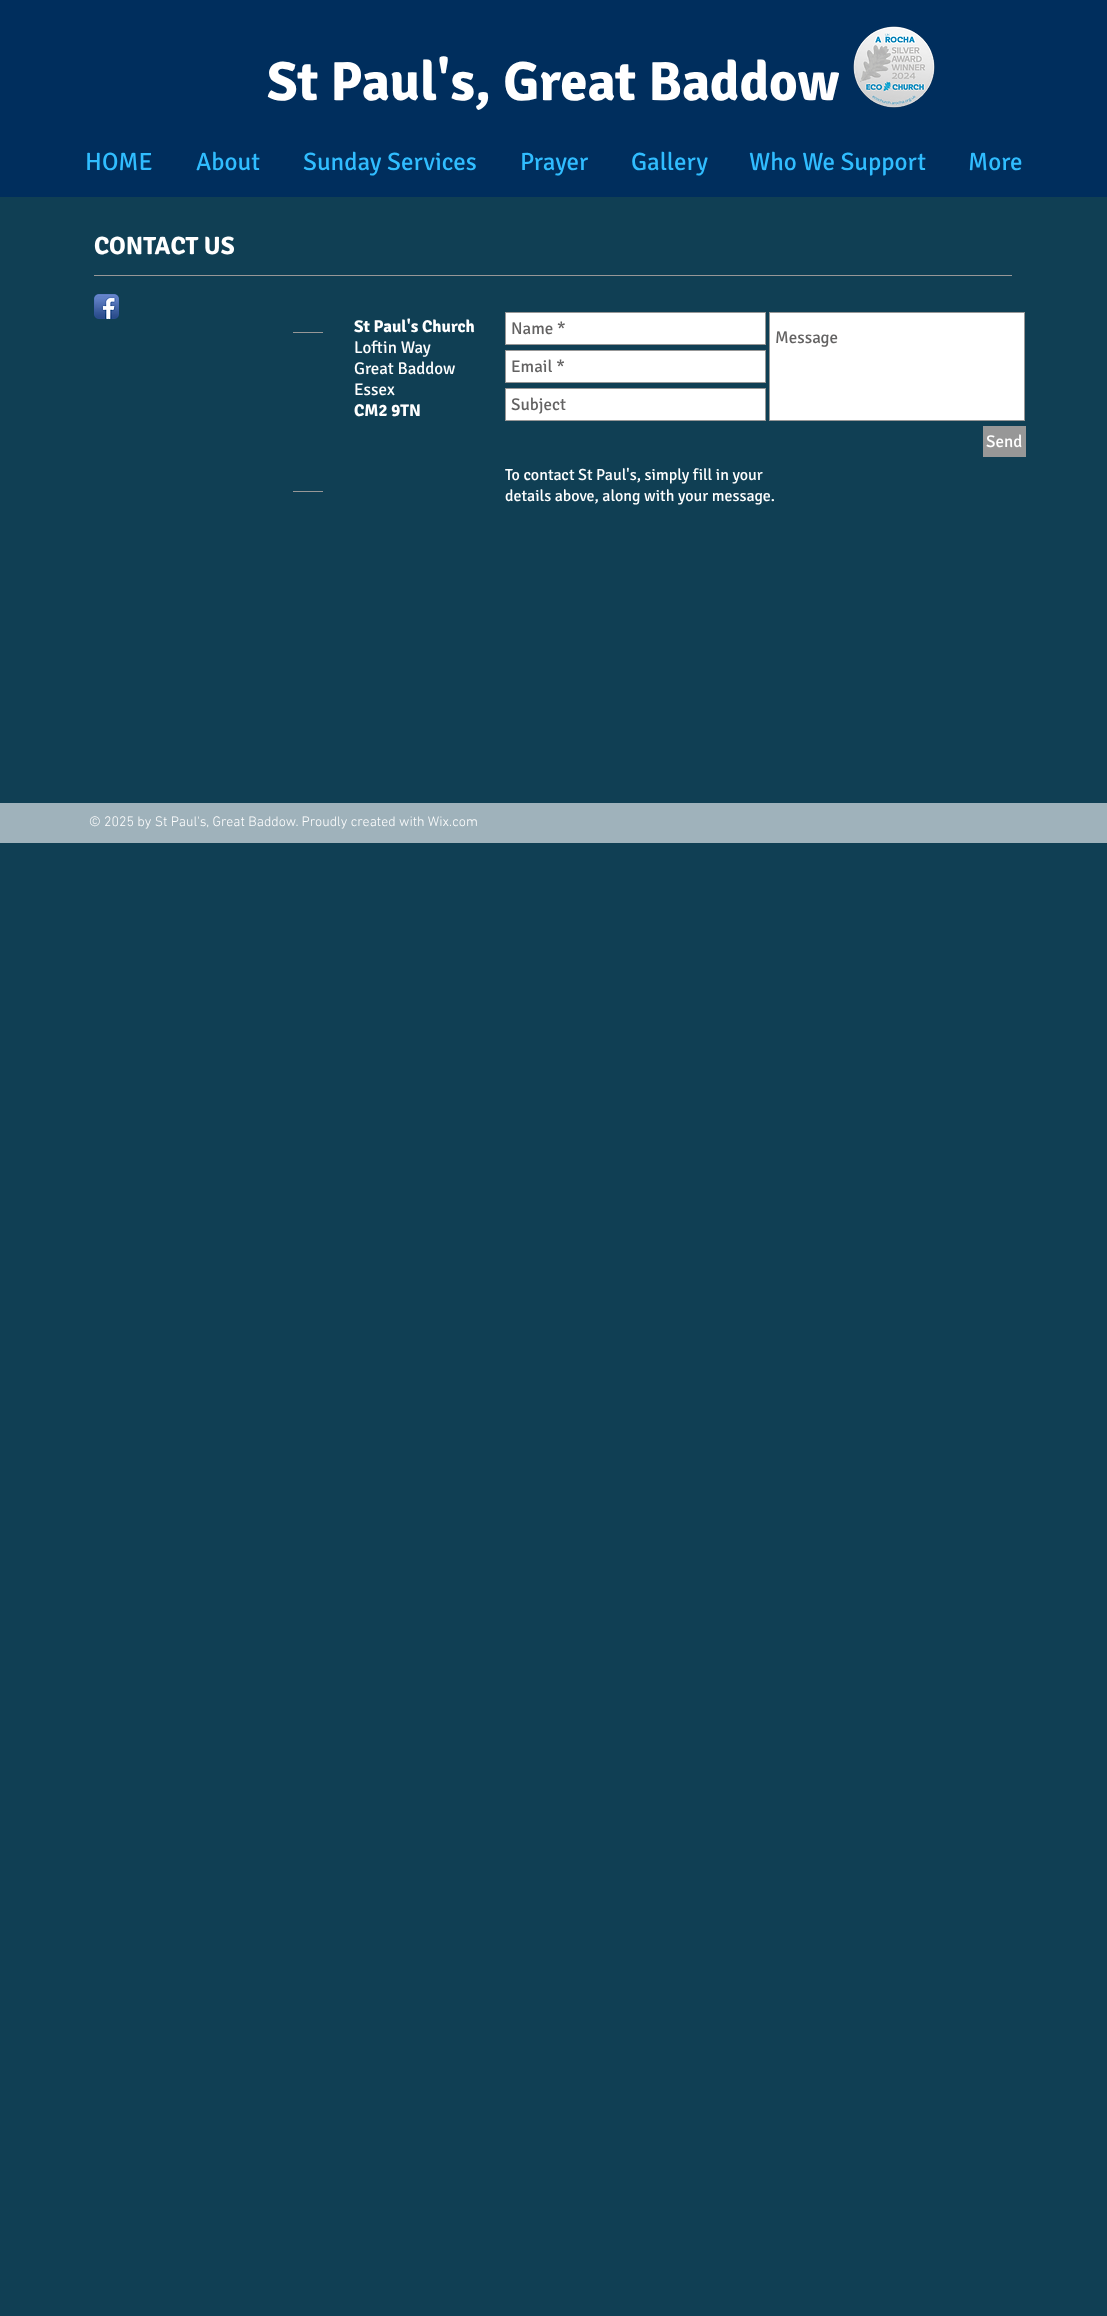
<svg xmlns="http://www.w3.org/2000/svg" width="1107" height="2316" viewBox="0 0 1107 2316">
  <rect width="100%" height="100%" fill="#103f54"/>
  <rect x="0" y="0" width="1107" height="197" fill="#002e5d"/>
  <text x="267" y="100" font-family="Signika" font-size="55" font-weight="bold" fill="#ffffff">St Paul's, Great Baddow</text>
  <image x="853" y="26" width="82" height="82" href="img1.png"/>
  <text x="85" y="170" font-family="Signika" font-size="25" fill="#30bdff">HOME</text>
  <text x="196" y="170" font-family="Signika" font-size="25" fill="#30bdff">About</text>
  <text x="303" y="170" font-family="Signika" font-size="25" fill="#30bdff">Sunday Services</text>
  <text x="520" y="170" font-family="Signika" font-size="25" fill="#30bdff">Prayer</text>
  <text x="631" y="170" font-family="Signika" font-size="25" fill="#30bdff">Gallery</text>
  <text x="749" y="170" font-family="Signika" font-size="25" fill="#30bdff">Who We Support</text>
  <text x="968" y="170" font-family="Signika" font-size="25" fill="#30bdff">More</text>
  <text x="94" y="254" font-family="Signika" font-size="25" font-weight="bold" fill="#ffffff">CONTACT US</text>
  <rect x="94" y="275" width="918" height="1" fill="#979797"/>
  <image x="94" y="294" width="25" height="25" href="img2.png"/>
  <rect x="293" y="332" width="30" height="1" fill="#979797"/>
  <text x="354" y="332" font-family="Signika" font-size="17" font-weight="bold" fill="#ffffff">St Paul's Church</text>
  <text x="354" y="353" font-family="Signika" font-size="17" fill="#ffffff">Loftin Way</text>
  <text x="354" y="374" font-family="Signika" font-size="17" fill="#ffffff">Great Baddow</text>
  <text x="354" y="395" font-family="Signika" font-size="17" fill="#ffffff">Essex</text>
  <text x="354" y="416" font-family="Signika" font-size="17" font-weight="bold" fill="#ffffff">CM2 9TN</text>
  <rect x="505.5" y="312.5" width="260" height="32" fill="#ffffff" stroke="#979797"/>
  <text x="511" y="334" font-family="Signika" font-size="17" fill="#636262">Name *</text>
  <rect x="769.5" y="312.5" width="255" height="108" fill="#ffffff" stroke="#979797"/>
  <text x="775" y="343" font-family="Signika" font-size="17" fill="#636262">Message</text>
  <rect x="505.5" y="350.5" width="260" height="32" fill="#ffffff" stroke="#979797"/>
  <text x="511" y="372" font-family="Signika" font-size="17" fill="#636262">Email *</text>
  <rect x="505.5" y="388.5" width="260" height="32" fill="#ffffff" stroke="#979797"/>
  <text x="511" y="410" font-family="Signika" font-size="17" fill="#636262">Subject</text>
  <rect x="983" y="426" width="43" height="31" fill="#979797"/>
  <text x="986" y="447" font-family="Signika" font-size="17" fill="#ffffff">Send</text>
  <rect x="293" y="491" width="30" height="1" fill="#979797"/>
  <text x="505" y="480" font-family="Signika" font-size="16" fill="#ffffff">To contact St Paul's, simply fill in your</text>
  <text x="505" y="501" font-family="Signika" font-size="16" fill="#ffffff">details above, along with your message.</text>
  <rect x="0" y="803" width="1107" height="40" fill="#9fb2bb"/>
  <text x="89" y="826" font-family="'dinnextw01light'" font-size="14" font-weight="300" fill="#ffffff">© 2025 by St Paul's, Great Baddow. Proudly created with Wix.com</text>
</svg>
